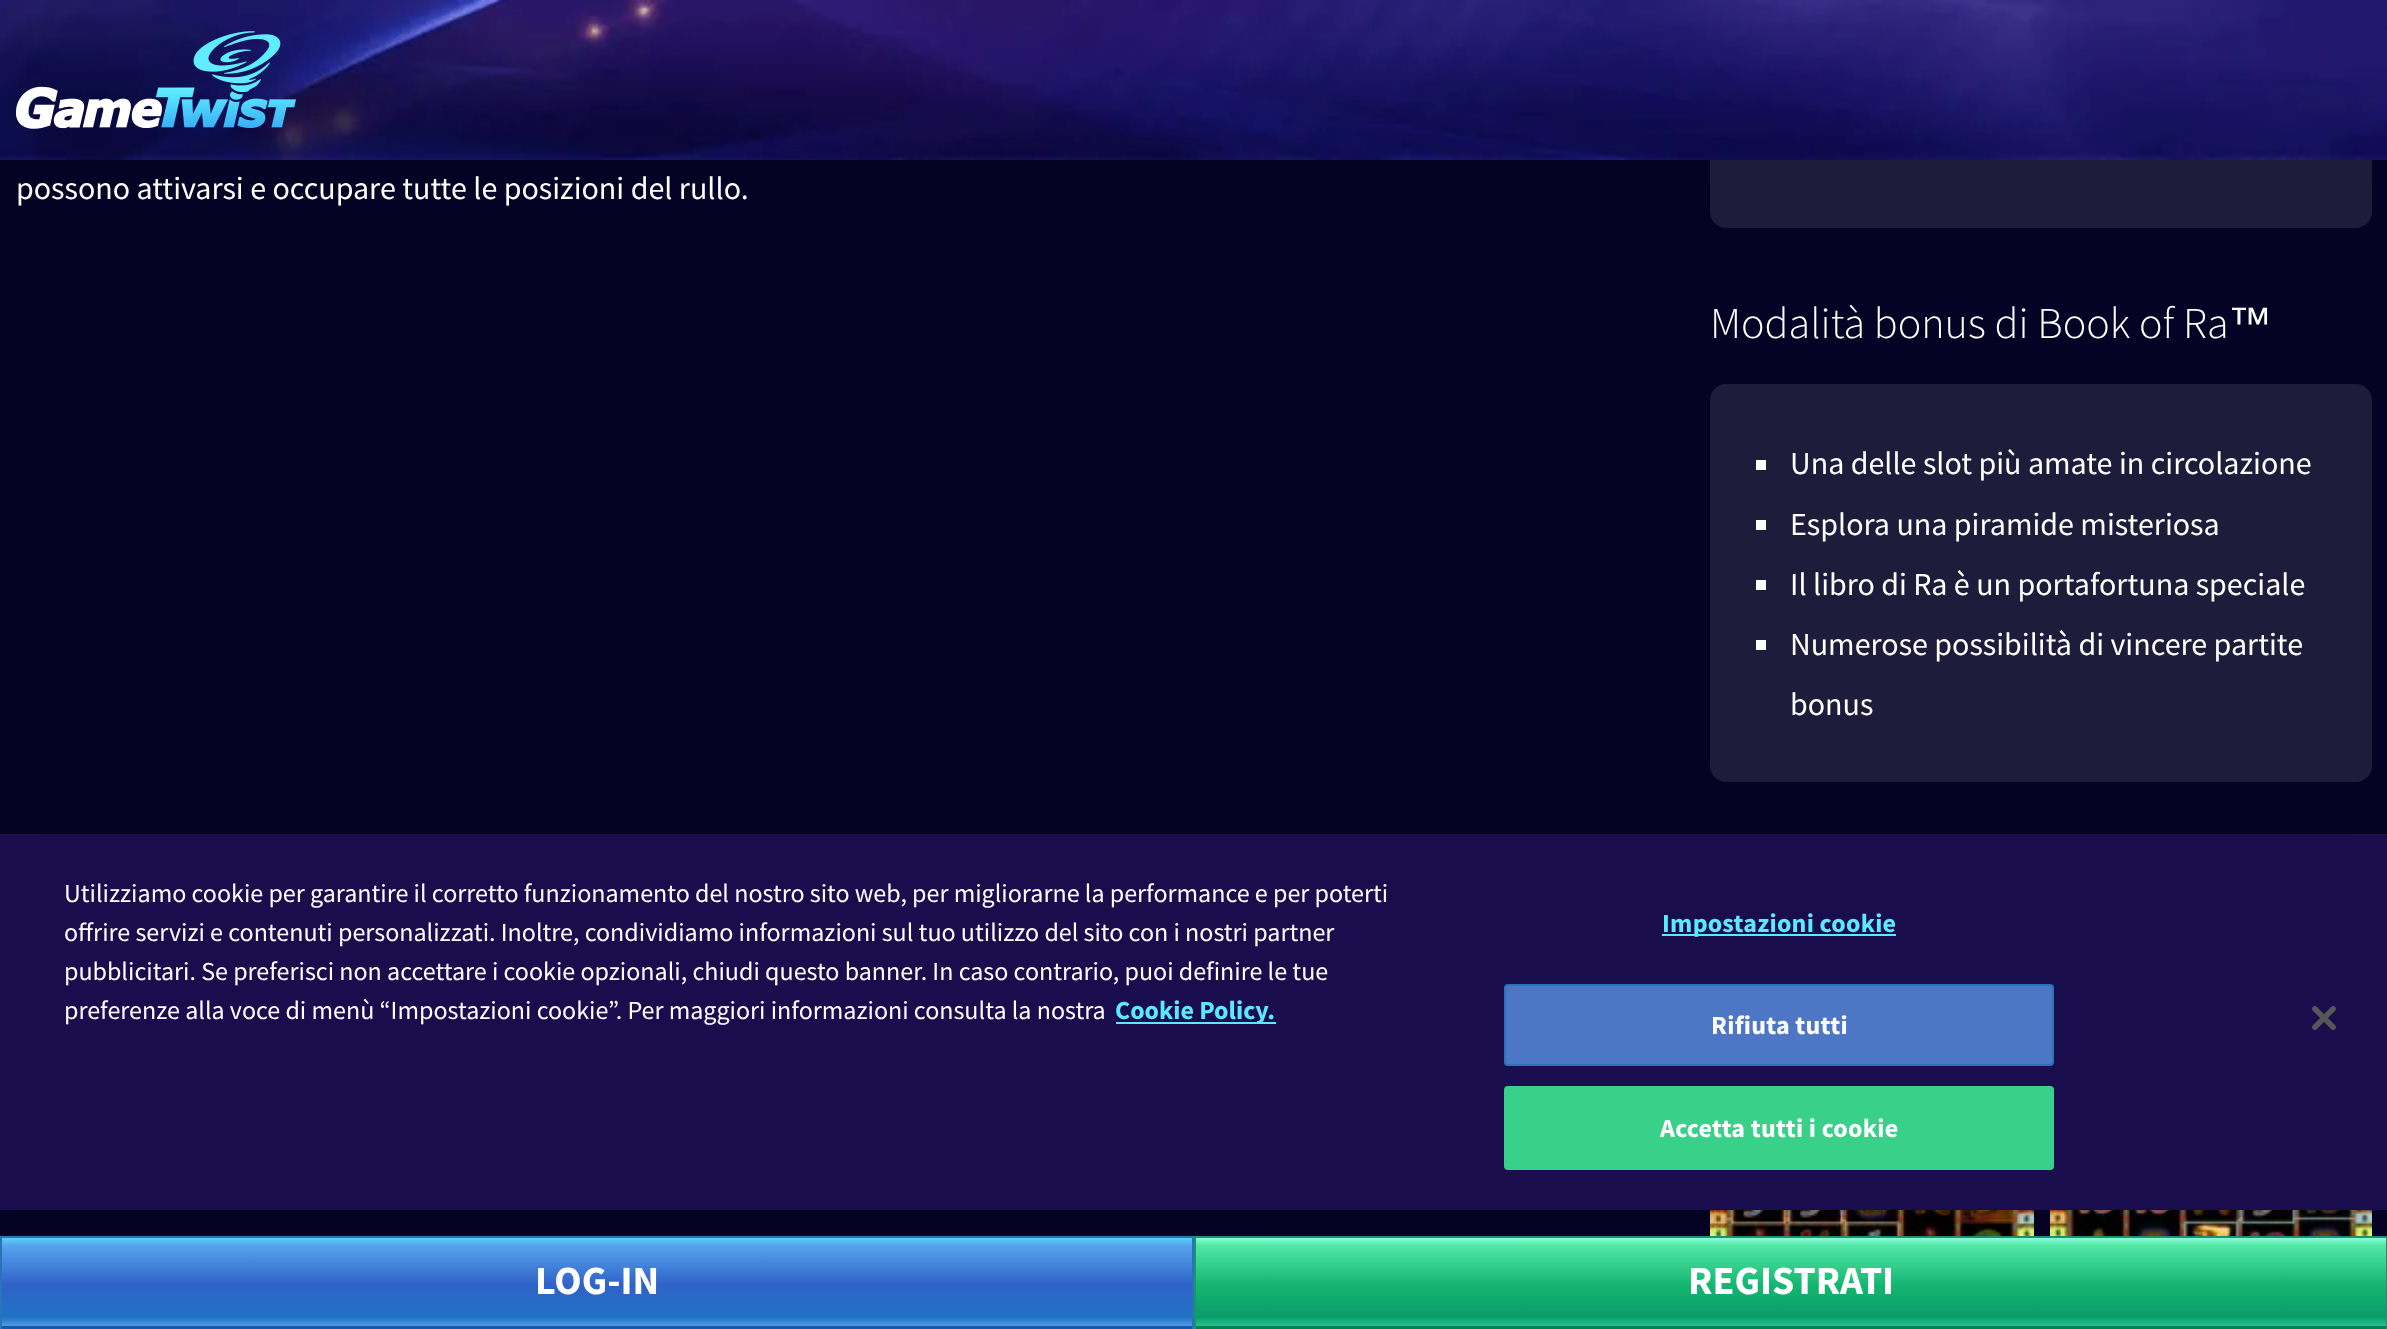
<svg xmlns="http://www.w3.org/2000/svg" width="2387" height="1329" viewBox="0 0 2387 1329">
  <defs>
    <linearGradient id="g1" gradientUnits="userSpaceOnUse" x1="1194" y1="-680" x2="1194" y2="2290"><stop offset="0.02" stop-color="#0c0929"/><stop offset="0.15" stop-color="#070426"/><stop offset="0.3" stop-color="#050225"/></linearGradient>
    <linearGradient id="g2" gradientUnits="userSpaceOnUse" x1="597" y1="1238" x2="597" y2="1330"><stop offset="0" stop-color="#55d6fb"/><stop offset="0.08" stop-color="#56a5ed"/><stop offset="0.51" stop-color="#2f62c8"/><stop offset="0.86" stop-color="#1f73c3"/><stop offset="1" stop-color="#65acf7"/></linearGradient>
    <linearGradient id="g3" gradientUnits="userSpaceOnUse" x1="1791" y1="1238" x2="1791" y2="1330"><stop offset="0" stop-color="#8cffdc"/><stop offset="0.08" stop-color="#52e8a6"/><stop offset="0.51" stop-color="#15b671"/><stop offset="0.86" stop-color="#099c6a"/><stop offset="1" stop-color="#33d4a6"/></linearGradient>
    <filter id="blur1" x="-50%" y="-200%" width="200%" height="500%"><feGaussianBlur stdDeviation="18"/></filter>
  </defs>
  <rect width="100%" height="100%" fill="#ffffff"/>
  <rect x="0" y="160" width="2387" height="1076" fill="url(#g1)"/>
  <text x="16" y="199" font-family="Source Sans Pro" font-size="32" fill="#ffffff">possono attivarsi e occupare tutte le posizioni del rullo.</text>
  <rect x="1710" y="-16" width="662" height="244" rx="16" fill="#1e1c3b"/>
  <text x="1710" y="338" font-family="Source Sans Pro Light" font-size="44" font-weight="300" fill="#ffffff">Modalità bonus di Book of Ra</text>
  <text x="2228" y="338" font-family="Liberation Sans" font-size="44" fill="#ffffff">™</text>
  <rect x="1710" y="384" width="662" height="398" rx="16" fill="#1e1b3b"/>
  <rect x="1756" y="460" width="10" height="10" fill="#ffffff"/>
  <text x="1790" y="474" font-family="Source Sans Pro" font-size="32" fill="#ffffff">Una delle slot più amate in circolazione</text>
  <rect x="1756" y="520" width="10" height="10" fill="#ffffff"/>
  <text x="1790" y="535" font-family="Source Sans Pro" font-size="32" fill="#ffffff">Esplora una piramide misteriosa</text>
  <rect x="1756" y="580" width="10" height="10" fill="#ffffff"/>
  <text x="1790" y="595" font-family="Source Sans Pro" font-size="32" fill="#ffffff">Il libro di Ra è un portafortuna speciale</text>
  <rect x="1756" y="640" width="10" height="10" fill="#ffffff"/>
  <text x="1790" y="655" font-family="Source Sans Pro" font-size="32" fill="#ffffff">Numerose possibilità di vincere partite</text>
  <text x="1790" y="715" font-family="Source Sans Pro" font-size="32" fill="#ffffff">bonus</text>
  <image x="1710" y="1210" width="324" height="26" href="img1.png"/>
  <image x="2050" y="1210" width="322" height="26" href="img2.png"/>
  <rect x="2" y="1238" width="1190" height="88" fill="url(#g2)"/>
  <rect x="2" y="1326" width="1190" height="3" fill="#1859ac"/>
  <rect x="1" y="1237" width="1192" height="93" fill="none" stroke="#2974b9" stroke-width="2"/>
  <rect x="1196" y="1238" width="1190" height="88" fill="url(#g3)"/>
  <rect x="1196" y="1326" width="1190" height="3" fill="#057f50"/>
  <rect x="1195" y="1237" width="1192" height="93" fill="none" stroke="#1c9271" stroke-width="2"/>
  <rect x="0" y="834" width="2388" height="376" fill="#000000" fill-opacity="0.2" filter="url(#blur1)"/>
  <rect x="0" y="834" width="2387" height="376" fill="#190d4e"/>
  <text x="64" y="902" font-family="Source Sans Pro" font-size="26.02" fill="#ffffff">Utilizziamo cookie per garantire il corretto funzionamento del nostro sito web, per migliorarne la performance e per poterti</text>
  <text x="64" y="941" font-family="Source Sans Pro" font-size="26.02" fill="#ffffff">offrire servizi e contenuti personalizzati. Inoltre, condividiamo informazioni sul tuo utilizzo del sito con i nostri partner</text>
  <text x="64" y="980" font-family="Source Sans Pro" font-size="26.02" fill="#ffffff">pubblicitari. Se preferisci non accettare i cookie opzionali, chiudi questo banner. In caso contrario, puoi definire le tue</text>
  <text x="64" y="1019" font-family="Source Sans Pro" font-size="26.02" fill="#ffffff">preferenze alla voce di menù “Impostazioni cookie”. Per maggiori informazioni consulta la nostra</text>
  <rect x="1116" y="1022" width="160" height="2" fill="#5ae9fe"/>
  <text x="1115" y="1019" font-family="Source Sans Pro" font-size="26.02" font-weight="bold" fill="#5ae9fe">Cookie Policy.</text>
  <rect x="1662" y="934" width="234" height="2" fill="#5ae9fe"/>
  <text x="1662" y="932" font-family="Source Sans Pro" font-size="26.02" font-weight="bold" letter-spacing="0.25" fill="#5ae9fe">Impostazioni cookie</text>
  <rect x="1505" y="985" width="548" height="80" rx="3" fill="#4d76c5" stroke="#2974b9" stroke-width="2"/>
  <text x="1711" y="1034" font-family="Source Sans Pro" font-size="26.02" font-weight="bold" letter-spacing="0.25" fill="#ffffff">Rifiuta tutti</text>
  <rect x="1505" y="1087" width="548" height="82" rx="3" fill="#39d089" stroke="#39d089" stroke-width="2"/>
  <text x="1660" y="1137" font-family="Source Sans Pro" font-size="26.02" font-weight="bold" letter-spacing="0.25" fill="#ffffff">Accetta tutti i cookie</text>
  <image x="2312" y="1006" width="24" height="24" href="img3.png"/>
  <image x="0" y="0" width="2387" height="160" href="img4.png"/>
  <image x="16" y="31" width="280" height="98" href="img5.png"/>
  <text x="535" y="1294" font-family="Source Sans Pro" font-size="40" font-weight="bold" fill="#ffffff">LOG-IN</text>
  <text x="1688" y="1294" font-family="Source Sans Pro" font-size="40" font-weight="bold" fill="#ffffff">REGISTRATI</text>
</svg>
